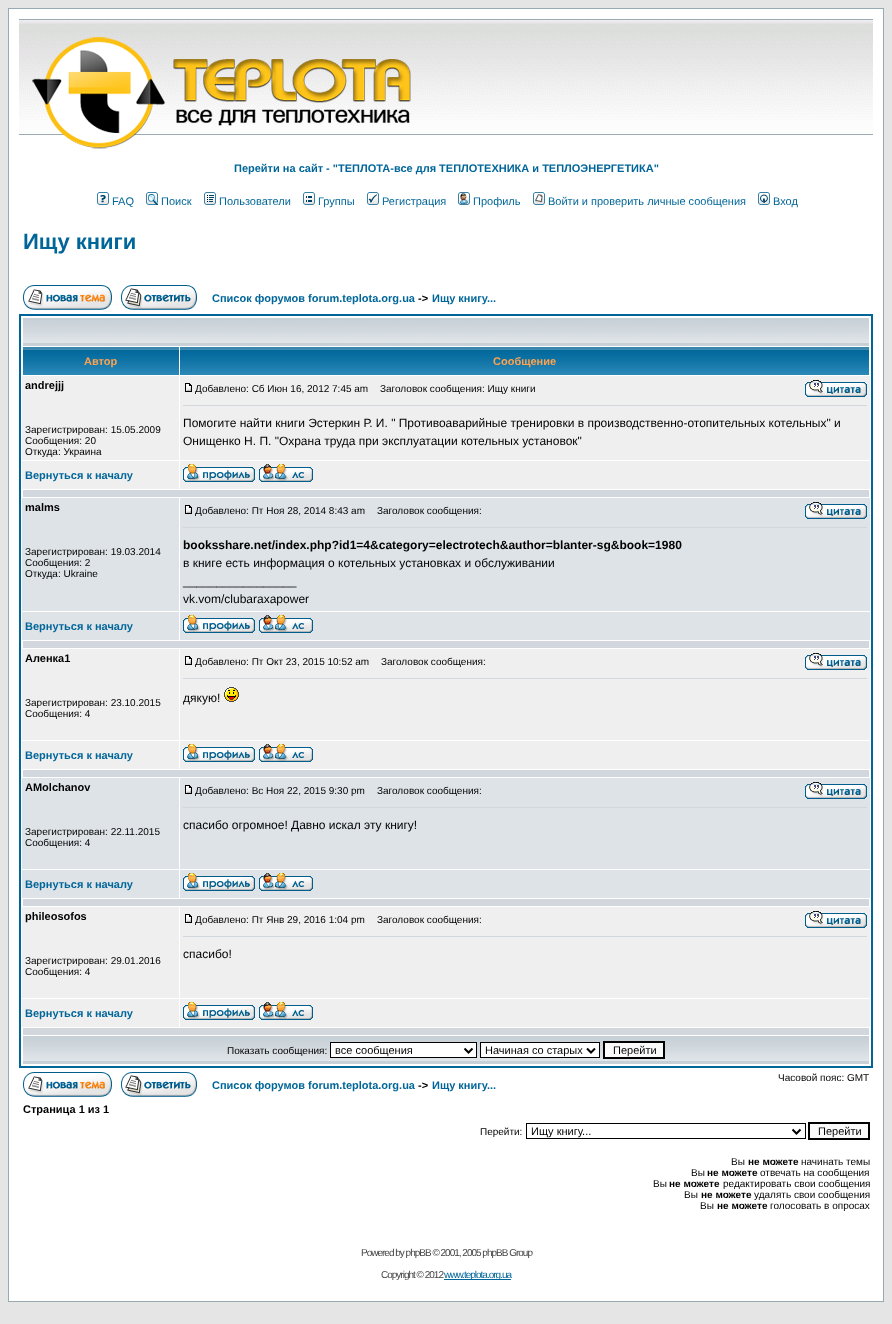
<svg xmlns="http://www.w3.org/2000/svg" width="892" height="1324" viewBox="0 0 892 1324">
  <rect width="100%" height="100%" fill="#e5e5e5"/>
  <rect x="8.5" y="8.5" width="875" height="1293" fill="#ffffff" stroke="#98aab1"/>
  <image x="19" y="19" width="854" height="116" href="img1.png"/>
  <image x="32" y="37" width="379" height="112" href="img2.png"/>
  <text x="234" y="172" font-family="Liberation Sans" font-size="11" font-weight="bold" fill="#006699">Перейти на cайт - "ТЕПЛОТА-все для ТЕПЛОТЕХНИКА и ТЕПЛОЭНЕРГЕТИКА"</text>
  <image x="97" y="192" width="12" height="13" href="img3.png"/>
  <text x="112" y="205" font-family="Liberation Sans" font-size="11" fill="#006699">FAQ</text>
  <image x="146" y="192" width="12" height="13" href="img4.png"/>
  <text x="161" y="205" font-family="Liberation Sans" font-size="11" fill="#006699">Поиск</text>
  <image x="204" y="192" width="12" height="13" href="img5.png"/>
  <text x="219" y="205" font-family="Liberation Sans" font-size="11" fill="#006699">Пользователи</text>
  <image x="303" y="192" width="12" height="13" href="img6.png"/>
  <text x="318" y="205" font-family="Liberation Sans" font-size="11" fill="#006699">Группы</text>
  <image x="367" y="192" width="12" height="13" href="img7.png"/>
  <text x="382" y="205" font-family="Liberation Sans" font-size="11" fill="#006699">Регистрация</text>
  <image x="458" y="192" width="12" height="13" href="img8.png"/>
  <text x="473" y="205" font-family="Liberation Sans" font-size="11" fill="#006699">Профиль</text>
  <image x="533" y="192" width="12" height="13" href="img9.png"/>
  <text x="548" y="205" font-family="Liberation Sans" font-size="11" fill="#006699">Войти и проверить личные сообщения</text>
  <image x="758" y="192" width="12" height="13" href="img10.png"/>
  <text x="773" y="205" font-family="Liberation Sans" font-size="11" fill="#006699">Вход</text>
  <text x="23" y="249" font-family="Liberation Sans" font-size="22" font-weight="bold" fill="#006699">Ищу книги</text>
  <image x="23" y="285" width="89" height="25" href="img11.png"/>
  <image x="121" y="285" width="76" height="25" href="img12.png"/>
  <text x="212" y="302" font-family="Liberation Sans" font-size="11" font-weight="bold" fill="#006699">Список форумов forum.teplota.org.ua</text>
  <text x="418" y="302" font-family="Liberation Sans" font-size="11" font-weight="bold" fill="#000000">-&gt;</text>
  <text x="432" y="302" font-family="Liberation Sans" font-size="11" font-weight="bold" fill="#006699">Ищу книгу...</text>
  <rect x="20" y="315" width="852" height="752" fill="none" stroke="#006699" stroke-width="2"/>
  <image x="23" y="318" width="846" height="28" href="img13.png"/>
  <image x="23" y="347" width="156" height="28" href="img14.png"/>
  <text x="84" y="365" font-family="Liberation Sans" font-size="11" font-weight="bold" fill="#ffa34f">Автор</text>
  <image x="180" y="347" width="689" height="28" href="img15.png"/>
  <text x="493" y="365" font-family="Liberation Sans" font-size="11" font-weight="bold" fill="#ffa34f">Сообщение</text>
  <rect x="22" y="376" width="157" height="84" fill="#efefef"/>
  <text x="25" y="389" font-family="Liberation Sans" font-size="11" font-weight="bold" fill="#000000">andrejjj</text>
  <text x="25" y="433" font-family="Liberation Sans" font-size="10" fill="#000000">Зарегистрирован: 15.05.2009</text>
  <text x="25" y="444" font-family="Liberation Sans" font-size="10" fill="#000000">Сообщения: 20</text>
  <text x="25" y="455" font-family="Liberation Sans" font-size="10" fill="#000000">Откуда: Украина</text>
  <rect x="180" y="376" width="690" height="84" fill="#efefef"/>
  <image x="185" y="383" width="7" height="9" href="img16.png"/>
  <text x="195" y="392" font-family="Liberation Sans" font-size="10" fill="#000000">Добавлено: Сб Июн 16, 2012 7:45 am</text>
  <text x="380" y="392" font-family="Liberation Sans" font-size="10" fill="#000000">Заголовок сообщения: Ищу книги</text>
  <image x="805" y="380" width="62" height="17" href="img17.png"/>
  <rect x="183" y="405" width="684" height="1" fill="#d1d7dc"/>
  <text x="183" y="427" font-family="Liberation Sans" font-size="12" fill="#000000">Помогите найти книги Эстеркин Р. И. " Противоаварийные тренировки в производственно-отопительных котельных" и</text>
  <text x="183" y="445" font-family="Liberation Sans" font-size="12" fill="#000000">Онищенко Н. П. "Охрана труда при эксплуатации котельных установок"</text>
  <rect x="22" y="461" width="157" height="28" fill="#efefef"/>
  <text x="25" y="479" font-family="Liberation Sans" font-size="11" font-weight="bold" fill="#006699">Вернуться к началу</text>
  <rect x="180" y="461" width="690" height="28" fill="#efefef"/>
  <image x="183" y="464" width="72" height="18" href="img18.png"/>
  <image x="259" y="464" width="54" height="18" href="img19.png"/>
  <rect x="23" y="490" width="846" height="7" fill="#d1d7dc"/>
  <rect x="22" y="498" width="157" height="113" fill="#dee3e7"/>
  <text x="25" y="511" font-family="Liberation Sans" font-size="11" font-weight="bold" fill="#000000">malms</text>
  <text x="25" y="555" font-family="Liberation Sans" font-size="10" fill="#000000">Зарегистрирован: 19.03.2014</text>
  <text x="25" y="566" font-family="Liberation Sans" font-size="10" fill="#000000">Сообщения: 2</text>
  <text x="25" y="577" font-family="Liberation Sans" font-size="10" fill="#000000">Откуда: Ukraine</text>
  <rect x="180" y="498" width="690" height="113" fill="#dee3e7"/>
  <image x="185" y="505" width="7" height="9" href="img20.png"/>
  <text x="195" y="514" font-family="Liberation Sans" font-size="10" fill="#000000">Добавлено: Пт Ноя 28, 2014 8:43 am</text>
  <text x="377" y="514" font-family="Liberation Sans" font-size="10" fill="#000000">Заголовок сообщения:</text>
  <image x="805" y="502" width="62" height="17" href="img21.png"/>
  <rect x="183" y="527" width="684" height="1" fill="#d1d7dc"/>
  <text x="183" y="549" font-family="Liberation Sans" font-size="12" font-weight="bold" fill="#000000">booksshare.net/index.php?id1=4&amp;category=electrotech&amp;author=blanter-sg&amp;book=1980</text>
  <text x="183" y="567" font-family="Liberation Sans" font-size="12" fill="#000000">в книге есть информация о котельных установках и обслуживании</text>
  <text x="183" y="585" font-family="Liberation Sans" font-size="12" fill="#000000">_________________</text>
  <text x="183" y="603" font-family="Liberation Sans" font-size="12" fill="#000000">vk.vom/clubaraxapower</text>
  <rect x="22" y="612" width="157" height="28" fill="#dee3e7"/>
  <text x="25" y="630" font-family="Liberation Sans" font-size="11" font-weight="bold" fill="#006699">Вернуться к началу</text>
  <rect x="180" y="612" width="690" height="28" fill="#dee3e7"/>
  <image x="183" y="615" width="72" height="18" href="img22.png"/>
  <image x="259" y="615" width="54" height="18" href="img23.png"/>
  <rect x="23" y="641" width="846" height="7" fill="#d1d7dc"/>
  <rect x="22" y="649" width="157" height="91" fill="#efefef"/>
  <text x="25" y="662" font-family="Liberation Sans" font-size="11" font-weight="bold" fill="#000000">Аленка1</text>
  <text x="25" y="706" font-family="Liberation Sans" font-size="10" fill="#000000">Зарегистрирован: 23.10.2015</text>
  <text x="25" y="717" font-family="Liberation Sans" font-size="10" fill="#000000">Сообщения: 4</text>
  <rect x="180" y="649" width="690" height="91" fill="#efefef"/>
  <image x="185" y="656" width="7" height="9" href="img16.png"/>
  <text x="195" y="665" font-family="Liberation Sans" font-size="10" fill="#000000">Добавлено: Пт Окт 23, 2015 10:52 am</text>
  <text x="381" y="665" font-family="Liberation Sans" font-size="10" fill="#000000">Заголовок сообщения:</text>
  <image x="805" y="653" width="62" height="17" href="img17.png"/>
  <rect x="183" y="678" width="684" height="1" fill="#d1d7dc"/>
  <text x="183" y="702" font-family="Liberation Sans" font-size="12" fill="#000000">дякую!</text>
  <image x="224" y="687" width="15" height="15" href="img24.png"/>
  <rect x="22" y="741" width="157" height="28" fill="#efefef"/>
  <text x="25" y="759" font-family="Liberation Sans" font-size="11" font-weight="bold" fill="#006699">Вернуться к началу</text>
  <rect x="180" y="741" width="690" height="28" fill="#efefef"/>
  <image x="183" y="744" width="72" height="18" href="img18.png"/>
  <image x="259" y="744" width="54" height="18" href="img19.png"/>
  <rect x="23" y="770" width="846" height="7" fill="#d1d7dc"/>
  <rect x="22" y="778" width="157" height="91" fill="#dee3e7"/>
  <text x="25" y="791" font-family="Liberation Sans" font-size="11" font-weight="bold" fill="#000000">AMolchanov</text>
  <text x="25" y="835" font-family="Liberation Sans" font-size="10" fill="#000000">Зарегистрирован: 22.11.2015</text>
  <text x="25" y="846" font-family="Liberation Sans" font-size="10" fill="#000000">Сообщения: 4</text>
  <rect x="180" y="778" width="690" height="91" fill="#dee3e7"/>
  <image x="185" y="785" width="7" height="9" href="img20.png"/>
  <text x="195" y="794" font-family="Liberation Sans" font-size="10" fill="#000000">Добавлено: Вс Ноя 22, 2015 9:30 pm</text>
  <text x="377" y="794" font-family="Liberation Sans" font-size="10" fill="#000000">Заголовок сообщения:</text>
  <image x="805" y="782" width="62" height="17" href="img21.png"/>
  <rect x="183" y="807" width="684" height="1" fill="#d1d7dc"/>
  <text x="183" y="829" font-family="Liberation Sans" font-size="12" fill="#000000">спасибо огромное! Давно искал эту книгу!</text>
  <rect x="22" y="870" width="157" height="28" fill="#dee3e7"/>
  <text x="25" y="888" font-family="Liberation Sans" font-size="11" font-weight="bold" fill="#006699">Вернуться к началу</text>
  <rect x="180" y="870" width="690" height="28" fill="#dee3e7"/>
  <image x="183" y="873" width="72" height="18" href="img22.png"/>
  <image x="259" y="873" width="54" height="18" href="img23.png"/>
  <rect x="23" y="899" width="846" height="7" fill="#d1d7dc"/>
  <rect x="22" y="907" width="157" height="91" fill="#efefef"/>
  <text x="25" y="920" font-family="Liberation Sans" font-size="11" font-weight="bold" fill="#000000">phileosofos</text>
  <text x="25" y="964" font-family="Liberation Sans" font-size="10" fill="#000000">Зарегистрирован: 29.01.2016</text>
  <text x="25" y="975" font-family="Liberation Sans" font-size="10" fill="#000000">Сообщения: 4</text>
  <rect x="180" y="907" width="690" height="91" fill="#efefef"/>
  <image x="185" y="914" width="7" height="9" href="img16.png"/>
  <text x="195" y="923" font-family="Liberation Sans" font-size="10" fill="#000000">Добавлено: Пт Янв 29, 2016 1:04 pm</text>
  <text x="377" y="923" font-family="Liberation Sans" font-size="10" fill="#000000">Заголовок сообщения:</text>
  <image x="805" y="911" width="62" height="17" href="img17.png"/>
  <rect x="183" y="936" width="684" height="1" fill="#d1d7dc"/>
  <text x="183" y="958" font-family="Liberation Sans" font-size="12" fill="#000000">спасибо!</text>
  <rect x="22" y="999" width="157" height="28" fill="#efefef"/>
  <text x="25" y="1017" font-family="Liberation Sans" font-size="11" font-weight="bold" fill="#006699">Вернуться к началу</text>
  <rect x="180" y="999" width="690" height="28" fill="#efefef"/>
  <image x="183" y="1002" width="72" height="18" href="img18.png"/>
  <image x="259" y="1002" width="54" height="18" href="img19.png"/>
  <rect x="23" y="1028" width="846" height="7" fill="#d1d7dc"/>
  <image x="23" y="1036" width="846" height="28" href="img13.png"/>
  <text x="227" y="1054" font-family="Liberation Sans" font-size="10" fill="#000000">Показать сообщения:</text>
  <rect x="330.5" y="1042.5" width="146" height="15" fill="#ffffff" stroke="#000000"/>
  <path d="M464.5 1048.5L468.5 1052.5L472.5 1048.5" fill="none" stroke="#000000" stroke-width="2"/>
  <text x="335" y="1054" font-family="Liberation Sans" font-size="11" fill="#000000">все сообщения</text>
  <rect x="480.5" y="1042.5" width="119" height="15" fill="#ffffff" stroke="#000000"/>
  <path d="M587 1048.5L591 1052.5L595 1048.5" fill="none" stroke="#000000" stroke-width="2"/>
  <text x="485" y="1054" font-family="Liberation Sans" font-size="11" fill="#000000">Начиная со старых</text>
  <rect x="604" y="1042" width="60" height="16" fill="#fafafa" stroke="#000000" stroke-width="2"/>
  <text x="613" y="1054" font-family="Liberation Sans" font-size="11" fill="#000000">Перейти</text>
  <image x="23" y="1072" width="89" height="25" href="img11.png"/>
  <image x="121" y="1072" width="76" height="25" href="img12.png"/>
  <text x="778" y="1081" font-family="Liberation Sans" font-size="10" fill="#000000">Часовой пояс: GMT</text>
  <text x="212" y="1089" font-family="Liberation Sans" font-size="11" font-weight="bold" fill="#006699">Список форумов forum.teplota.org.ua</text>
  <text x="418" y="1089" font-family="Liberation Sans" font-size="11" font-weight="bold" fill="#000000">-&gt;</text>
  <text x="432" y="1089" font-family="Liberation Sans" font-size="11" font-weight="bold" fill="#006699">Ищу книгу...</text>
  <text x="23" y="1113" font-family="Liberation Sans" font-size="11" font-weight="bold" fill="#000000">Страница 1 из 1</text>
  <text x="480" y="1135" font-family="Liberation Sans" font-size="10" fill="#000000">Перейти:</text>
  <rect x="526.5" y="1123.5" width="279" height="15" fill="none" stroke="#000000"/>
  <path d="M792.5 1129.5L796.5 1133.5L800.5 1129.5" fill="none" stroke="#000000" stroke-width="2"/>
  <text x="531" y="1135" font-family="Liberation Sans" font-size="11" fill="#000000">Ищу книгу...</text>
  <rect x="809" y="1123" width="60" height="16" fill="#fafafa" stroke="#000000" stroke-width="2"/>
  <text x="818" y="1135" font-family="Liberation Sans" font-size="11" fill="#000000">Перейти</text>
  <text x="731" y="1165" font-family="Liberation Sans" font-size="10" fill="#000000">Вы</text>
  <text x="748" y="1165" font-family="Liberation Sans" font-size="10" font-weight="bold" fill="#000000">не можете</text>
  <text x="801" y="1165" font-family="Liberation Sans" font-size="10" fill="#000000">начинать темы</text>
  <text x="691" y="1176" font-family="Liberation Sans" font-size="10" fill="#000000">Вы</text>
  <text x="707" y="1176" font-family="Liberation Sans" font-size="10" font-weight="bold" fill="#000000">не можете</text>
  <text x="760" y="1176" font-family="Liberation Sans" font-size="10" fill="#000000">отвечать на сообщения</text>
  <text x="653" y="1187" font-family="Liberation Sans" font-size="10" fill="#000000">Вы</text>
  <text x="669" y="1187" font-family="Liberation Sans" font-size="10" font-weight="bold" fill="#000000">не можете</text>
  <text x="723" y="1187" font-family="Liberation Sans" font-size="10" fill="#000000">редактировать свои сообщения</text>
  <text x="684" y="1198" font-family="Liberation Sans" font-size="10" fill="#000000">Вы</text>
  <text x="701" y="1198" font-family="Liberation Sans" font-size="10" font-weight="bold" fill="#000000">не можете</text>
  <text x="754" y="1198" font-family="Liberation Sans" font-size="10" fill="#000000">удалять свои сообщения</text>
  <text x="700" y="1209" font-family="Liberation Sans" font-size="10" fill="#000000">Вы</text>
  <text x="717" y="1209" font-family="Liberation Sans" font-size="10" font-weight="bold" fill="#000000">не можете</text>
  <text x="770" y="1209" font-family="Liberation Sans" font-size="10" fill="#000000">голосовать в опросах</text>
  <text x="361" y="1256" font-family="Liberation Sans" font-size="10" letter-spacing="-1" fill="#444444">Powered by phpBB © 2001, 2005 phpBB Group</text>
  <text x="381" y="1278" font-family="Liberation Sans" font-size="10" letter-spacing="-1" fill="#444444">Copyright © 2012</text>
  <rect x="444" y="1279" width="67" height="1" fill="#006699"/>
  <text x="444" y="1278" font-family="Liberation Sans" font-size="10" letter-spacing="-1" fill="#006699">www.teplota.org.ua</text>
</svg>
